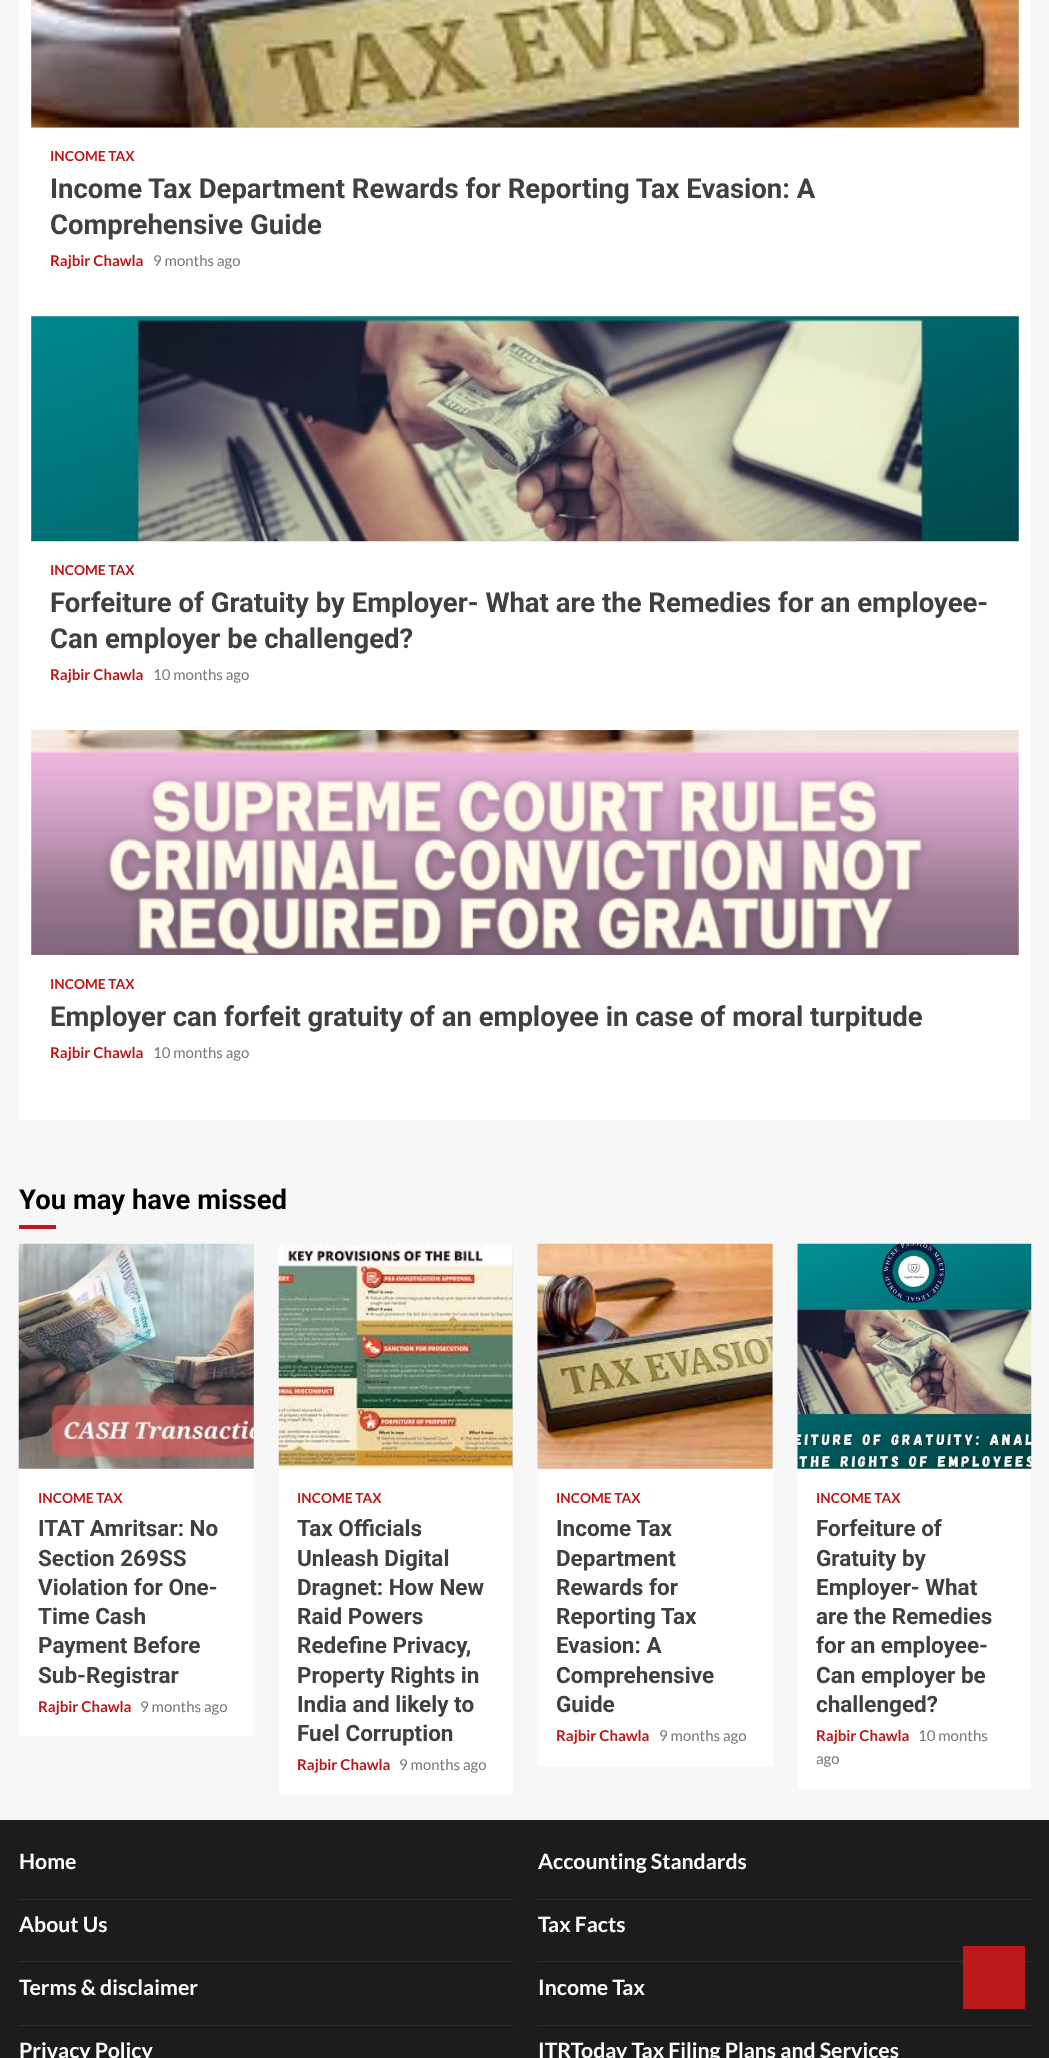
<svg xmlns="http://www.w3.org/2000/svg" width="1049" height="2058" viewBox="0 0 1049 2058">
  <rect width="100%" height="100%" fill="#f7f7f7"/>
  <rect x="19" y="0" width="1012" height="1120" fill="#ffffff"/>
  <rect x="31" y="0" width="988" height="128" fill="#e0e0e0"/>
  <image x="31" y="0" width="988" height="128" href="img1.png"/>
  <text x="50" y="161" font-family="Lato" font-size="13.75" font-weight="bold" fill="#bb1919">INCOME TAX</text>
  <text x="50" y="198" font-family="Roboto" font-size="27.5" font-weight="bold" fill="#404040">Income Tax Department Rewards for Reporting Tax Evasion: A</text>
  <text x="50" y="234" font-family="Roboto" font-size="27.5" font-weight="bold" fill="#404040">Comprehensive Guide</text>
  <text x="50" y="266" font-family="Lato" font-size="15" font-weight="bold" fill="#bb1919">Rajbir Chawla</text>
  <text x="153" y="266" font-family="Lato" font-size="15" fill="#777777">9 months ago</text>
  <rect x="31" y="316" width="988" height="225" fill="#e0e0e0"/>
  <image x="31" y="316" width="988" height="226" href="img2.png"/>
  <text x="50" y="575" font-family="Lato" font-size="13.75" font-weight="bold" fill="#bb1919">INCOME TAX</text>
  <text x="50" y="612" font-family="Roboto" font-size="27.5" font-weight="bold" fill="#404040">Forfeiture of Gratuity by Employer- What are the Remedies for an employee-</text>
  <text x="50" y="648" font-family="Roboto" font-size="27.5" font-weight="bold" fill="#404040">Can employer be challenged?</text>
  <text x="50" y="680" font-family="Lato" font-size="15" font-weight="bold" fill="#bb1919">Rajbir Chawla</text>
  <text x="153" y="680" font-family="Lato" font-size="15" fill="#777777">10 months ago</text>
  <image x="31" y="730" width="988" height="225" href="img3.png"/>
  <text x="50" y="989" font-family="Lato" font-size="13.75" font-weight="bold" fill="#bb1919">INCOME TAX</text>
  <text x="50" y="1026" font-family="Roboto" font-size="27.5" font-weight="bold" fill="#404040">Employer can forfeit gratuity of an employee in case of moral turpitude</text>
  <text x="50" y="1058" font-family="Lato" font-size="15" font-weight="bold" fill="#bb1919">Rajbir Chawla</text>
  <text x="153" y="1058" font-family="Lato" font-size="15" fill="#777777">10 months ago</text>
  <text x="19" y="1209" font-family="Roboto" font-size="27.5" font-weight="bold" fill="#000000">You may have missed</text>
  <rect x="19" y="1225" width="37" height="4" fill="#bb1919"/>
  <rect x="19" y="1469" width="235" height="267" fill="#ffffff"/>
  <rect x="19" y="1244" width="235" height="225" fill="#e0e0e0"/>
  <image x="18" y="1243" width="236" height="226" href="img4.png"/>
  <text x="38" y="1503" font-family="Lato" font-size="13.75" font-weight="bold" fill="#bb1919">INCOME TAX</text>
  <text x="38" y="1536" font-family="Roboto" font-size="22.5" font-weight="bold" fill="#404040">ITAT Amritsar: No</text>
  <text x="38" y="1566" font-family="Roboto" font-size="22.5" font-weight="bold" fill="#404040">Section 269SS</text>
  <text x="38" y="1595" font-family="Roboto" font-size="22.5" font-weight="bold" fill="#404040">Violation for One-</text>
  <text x="38" y="1624" font-family="Roboto" font-size="22.5" font-weight="bold" fill="#404040">Time Cash</text>
  <text x="38" y="1653" font-family="Roboto" font-size="22.5" font-weight="bold" fill="#404040">Payment Before</text>
  <text x="38" y="1683" font-family="Roboto" font-size="22.5" font-weight="bold" fill="#404040">Sub-Registrar</text>
  <text x="38" y="1712" font-family="Lato" font-size="15" font-weight="bold" fill="#bb1919">Rajbir Chawla</text>
  <text x="140" y="1712" font-family="Lato" font-size="15" fill="#777777">9 months ago</text>
  <rect x="279" y="1469" width="234" height="326" fill="#ffffff"/>
  <rect x="279" y="1244" width="234" height="225" fill="#e0e0e0"/>
  <image x="278" y="1243" width="235" height="226" href="img5.png"/>
  <text x="297" y="1503" font-family="Lato" font-size="13.75" font-weight="bold" fill="#bb1919">INCOME TAX</text>
  <text x="297" y="1536" font-family="Roboto" font-size="22.5" font-weight="bold" fill="#404040">Tax Officials</text>
  <text x="297" y="1566" font-family="Roboto" font-size="22.5" font-weight="bold" fill="#404040">Unleash Digital</text>
  <text x="297" y="1595" font-family="Roboto" font-size="22.5" font-weight="bold" fill="#404040">Dragnet: How New</text>
  <text x="297" y="1624" font-family="Roboto" font-size="22.5" font-weight="bold" fill="#404040">Raid Powers</text>
  <text x="297" y="1653" font-family="Roboto" font-size="22.5" font-weight="bold" fill="#404040">Redefine Privacy,</text>
  <text x="297" y="1683" font-family="Roboto" font-size="22.5" font-weight="bold" fill="#404040">Property Rights in</text>
  <text x="297" y="1712" font-family="Roboto" font-size="22.5" font-weight="bold" fill="#404040">India and likely to</text>
  <text x="297" y="1741" font-family="Roboto" font-size="22.5" font-weight="bold" fill="#404040">Fuel Corruption</text>
  <text x="297" y="1770" font-family="Lato" font-size="15" font-weight="bold" fill="#bb1919">Rajbir Chawla</text>
  <text x="399" y="1770" font-family="Lato" font-size="15" fill="#777777">9 months ago</text>
  <rect x="538" y="1469" width="235" height="297" fill="#ffffff"/>
  <rect x="538" y="1244" width="235" height="225" fill="#e0e0e0"/>
  <image x="537" y="1243" width="236" height="226" href="img6.png"/>
  <text x="556" y="1503" font-family="Lato" font-size="13.75" font-weight="bold" fill="#bb1919">INCOME TAX</text>
  <text x="556" y="1536" font-family="Roboto" font-size="22.5" font-weight="bold" fill="#404040">Income Tax</text>
  <text x="556" y="1566" font-family="Roboto" font-size="22.5" font-weight="bold" fill="#404040">Department</text>
  <text x="556" y="1595" font-family="Roboto" font-size="22.5" font-weight="bold" fill="#404040">Rewards for</text>
  <text x="556" y="1624" font-family="Roboto" font-size="22.5" font-weight="bold" fill="#404040">Reporting Tax</text>
  <text x="556" y="1653" font-family="Roboto" font-size="22.5" font-weight="bold" fill="#404040">Evasion: A</text>
  <text x="556" y="1683" font-family="Roboto" font-size="22.5" font-weight="bold" fill="#404040">Comprehensive</text>
  <text x="556" y="1712" font-family="Roboto" font-size="22.5" font-weight="bold" fill="#404040">Guide</text>
  <text x="556" y="1741" font-family="Lato" font-size="15" font-weight="bold" fill="#bb1919">Rajbir Chawla</text>
  <text x="659" y="1741" font-family="Lato" font-size="15" fill="#777777">9 months ago</text>
  <rect x="798" y="1468" width="233" height="321" fill="#ffffff"/>
  <image x="797" y="1243" width="235" height="226" href="img7.png"/>
  <text x="816" y="1503" font-family="Lato" font-size="13.75" font-weight="bold" fill="#bb1919">INCOME TAX</text>
  <text x="816" y="1536" font-family="Roboto" font-size="22.5" font-weight="bold" fill="#404040">Forfeiture of</text>
  <text x="816" y="1566" font-family="Roboto" font-size="22.5" font-weight="bold" fill="#404040">Gratuity by</text>
  <text x="816" y="1595" font-family="Roboto" font-size="22.5" font-weight="bold" fill="#404040">Employer- What</text>
  <text x="816" y="1624" font-family="Roboto" font-size="22.5" font-weight="bold" fill="#404040">are the Remedies</text>
  <text x="816" y="1653" font-family="Roboto" font-size="22.5" font-weight="bold" fill="#404040">for an employee-</text>
  <text x="816" y="1683" font-family="Roboto" font-size="22.5" font-weight="bold" fill="#404040">Can employer be</text>
  <text x="816" y="1712" font-family="Roboto" font-size="22.5" font-weight="bold" fill="#404040">challenged?</text>
  <text x="816" y="1741" font-family="Lato" font-size="15" font-weight="bold" fill="#bb1919">Rajbir Chawla</text>
  <text x="918" y="1741" font-family="Lato" font-size="15" fill="#777777">10 months</text>
  <text x="816" y="1764" font-family="Lato" font-size="15" fill="#777777">ago</text>
  <rect x="0" y="1820" width="1049" height="238" fill="#1c1c1c"/>
  <rect x="19" y="1899" width="494" height="1" fill="#2d2d2d"/>
  <text x="19" y="1869" font-family="Lato" font-size="21.25" font-weight="bold" fill="#ffffff">Home</text>
  <rect x="19" y="1961" width="494" height="1" fill="#2d2d2d"/>
  <text x="19" y="1932" font-family="Lato" font-size="21.25" font-weight="bold" fill="#ffffff">About Us</text>
  <rect x="19" y="2025" width="494" height="1" fill="#2d2d2d"/>
  <text x="19" y="1995" font-family="Lato" font-size="21.25" font-weight="bold" fill="#ffffff">Terms &amp; disclaimer</text>
  <text x="19" y="2058" font-family="Lato" font-size="21.25" font-weight="bold" fill="#ffffff">Privacy Policy</text>
  <rect x="538" y="1899" width="493" height="1" fill="#2d2d2d"/>
  <text x="538" y="1869" font-family="Lato" font-size="21.25" font-weight="bold" fill="#ffffff">Accounting Standards</text>
  <rect x="538" y="1961" width="493" height="1" fill="#2d2d2d"/>
  <text x="538" y="1932" font-family="Lato" font-size="21.25" font-weight="bold" fill="#ffffff">Tax Facts</text>
  <rect x="538" y="2025" width="493" height="1" fill="#2d2d2d"/>
  <text x="538" y="1995" font-family="Lato" font-size="21.25" font-weight="bold" fill="#ffffff">Income Tax</text>
  <text x="538" y="2058" font-family="Lato" font-size="21.25" font-weight="bold" fill="#ffffff">ITRToday Tax Filing Plans and Services</text>
  <rect x="963" y="1946" width="62" height="63" fill="#bb191a"/>
</svg>
